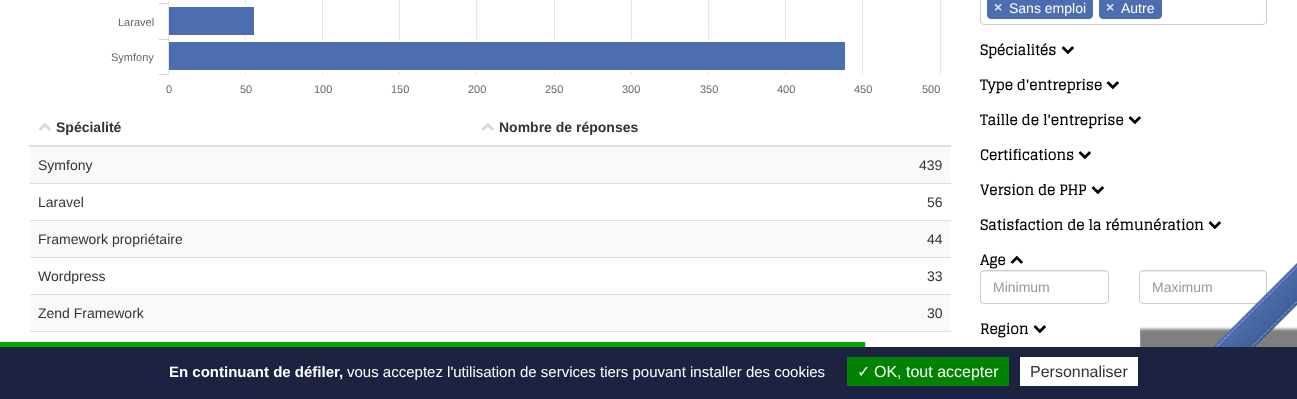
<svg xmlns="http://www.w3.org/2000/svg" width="1297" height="399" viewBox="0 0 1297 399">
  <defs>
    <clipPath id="clip1"><rect x="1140" y="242" width="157" height="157"/></clipPath>
    <filter id="blur1" x="-50%" y="-200%" width="200%" height="500%"><feGaussianBlur stdDeviation="1.5"/></filter>
    <linearGradient id="g1" gradientUnits="userSpaceOnUse" x1="1228" y1="332" x2="1250" y2="353"><stop offset="0" stop-color="#000000" stop-opacity="0"/><stop offset="1" stop-color="#000000" stop-opacity="0.15"/></linearGradient>
    <filter id="blur2" x="-50%" y="-200%" width="200%" height="500%"><feGaussianBlur stdDeviation="1"/></filter>
  </defs>
  <rect width="100%" height="100%" fill="#ffffff"/>
  <text x="118" y="26" font-family="Liberation Sans" font-size="11" fill="#666666">Laravel</text>
  <image x="159" y="0" width="782" height="75" href="img1.png"/>
  <text x="111" y="61" font-family="Liberation Sans" font-size="11" fill="#666666">Symfony</text>
  <text x="166" y="93" font-family="Liberation Sans" font-size="11" fill="#666666">0</text>
  <text x="240" y="93" font-family="Liberation Sans" font-size="11" fill="#666666">50</text>
  <text x="314" y="93" font-family="Liberation Sans" font-size="11" fill="#666666">100</text>
  <text x="391" y="93" font-family="Liberation Sans" font-size="11" fill="#666666">150</text>
  <text x="468" y="93" font-family="Liberation Sans" font-size="11" fill="#666666">200</text>
  <text x="545" y="93" font-family="Liberation Sans" font-size="11" fill="#666666">250</text>
  <text x="622" y="93" font-family="Liberation Sans" font-size="11" fill="#666666">300</text>
  <text x="700" y="93" font-family="Liberation Sans" font-size="11" fill="#666666">350</text>
  <text x="777" y="93" font-family="Liberation Sans" font-size="11" fill="#666666">400</text>
  <text x="854" y="93" font-family="Liberation Sans" font-size="11" fill="#666666">450</text>
  <text x="922" y="93" font-family="Liberation Sans" font-size="11" fill="#666666">500</text>
  <image x="39" y="123" width="12" height="8" href="img2.png"/>
  <text x="56" y="132" font-family="Liberation Sans" font-size="14" font-weight="bold" fill="#333333">Spécialité</text>
  <rect x="29" y="145" width="922" height="2" fill="#dddddd"/>
  <image x="482" y="123" width="12" height="8" href="img2.png"/>
  <text x="499" y="132" font-family="Liberation Sans" font-size="14" font-weight="bold" fill="#333333">Nombre de réponses</text>
  <rect x="30" y="147" width="920" height="36" fill="#f9f9f9"/>
  <text x="38" y="170" font-family="Liberation Sans" font-size="14" fill="#333333">Symfony</text>
  <text x="919" y="170" font-family="Liberation Sans" font-size="14" fill="#333333">439</text>
  <text x="38" y="207" font-family="Liberation Sans" font-size="14" fill="#333333">Laravel</text>
  <rect x="30" y="183" width="921" height="1" fill="#dddddd"/>
  <text x="927" y="207" font-family="Liberation Sans" font-size="14" fill="#333333">56</text>
  <rect x="30" y="221" width="920" height="36" fill="#f9f9f9"/>
  <text x="38" y="244" font-family="Liberation Sans" font-size="14" fill="#333333">Framework propriétaire</text>
  <rect x="30" y="220" width="921" height="1" fill="#dddddd"/>
  <text x="927" y="244" font-family="Liberation Sans" font-size="14" fill="#333333">44</text>
  <text x="38" y="281" font-family="Liberation Sans" font-size="14" fill="#333333">Wordpress</text>
  <rect x="30" y="257" width="921" height="1" fill="#dddddd"/>
  <text x="927" y="281" font-family="Liberation Sans" font-size="14" fill="#333333">33</text>
  <rect x="30" y="295" width="920" height="36" fill="#f9f9f9"/>
  <text x="38" y="318" font-family="Liberation Sans" font-size="14" fill="#333333">Zend Framework</text>
  <rect x="30" y="294" width="921" height="1" fill="#dddddd"/>
  <text x="927" y="318" font-family="Liberation Sans" font-size="14" fill="#333333">30</text>
  <rect x="30" y="331" width="921" height="1" fill="#dddddd"/>
  <rect x="980.5" y="-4.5" width="286" height="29" rx="3.5" fill="none" stroke="#cccccc"/>
  <rect x="987.5" y="-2.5" width="105" height="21" rx="3.5" fill="#4c6eaf" stroke="#4c6eaf"/>
  <text x="994" y="12" font-family="Liberation Sans" font-size="14" font-weight="bold" fill="#dbe2ef">×</text>
  <text x="1009" y="13" font-family="Liberation Sans" font-size="14" fill="#ffffff">Sans emploi</text>
  <rect x="1099.5" y="-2.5" width="62" height="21" rx="3.5" fill="#4c6eaf" stroke="#4c6eaf"/>
  <text x="1106" y="12" font-family="Liberation Sans" font-size="14" font-weight="bold" fill="#dbe2ef">×</text>
  <text x="1121" y="13" font-family="Liberation Sans" font-size="14" fill="#ffffff">Autre</text>
  <text x="980" y="55" font-family="Glegoo" font-size="14" font-weight="bold" fill="#000000">Spécialités</text>
  <image x="1061" y="46" width="13" height="9" href="img3.png"/>
  <text x="980" y="90" font-family="Glegoo" font-size="14" font-weight="bold" fill="#000000">Type d'entreprise</text>
  <image x="1106" y="81" width="13" height="9" href="img3.png"/>
  <text x="980" y="125" font-family="Glegoo" font-size="14" font-weight="bold" fill="#000000">Taille de l'entreprise</text>
  <image x="1128" y="116" width="13" height="9" href="img3.png"/>
  <text x="980" y="160" font-family="Glegoo" font-size="14" font-weight="bold" fill="#000000">Certifications</text>
  <image x="1078" y="151" width="13" height="9" href="img3.png"/>
  <text x="980" y="195" font-family="Glegoo" font-size="14" font-weight="bold" fill="#000000">Version de PHP</text>
  <image x="1091" y="186" width="13" height="9" href="img3.png"/>
  <text x="980" y="230" font-family="Glegoo" font-size="14" font-weight="bold" fill="#000000">Satisfaction de la rémunération</text>
  <image x="1208" y="221" width="13" height="9" href="img3.png"/>
  <text x="980" y="265" font-family="Glegoo" font-size="14" font-weight="bold" fill="#000000">Age</text>
  <image x="1010" y="255" width="13" height="9" href="img4.png"/>
  <path d="M984 272H1105C1107 272 1108 273 1108 275V274C1108 272 1107 271 1105 271H984C982 271 981 272 981 274V275C981 273 982 272 984 272Z" fill="#ececec"/>
  <rect x="980.5" y="270.5" width="128" height="33" rx="3.5" fill="none" stroke="#cccccc"/>
  <text x="993" y="292" font-family="Liberation Sans" font-size="14" fill="#999999">Minimum</text>
  <path d="M1143 272H1263C1265 272 1266 273 1266 275C1266 273 1266 271 1264 271H1143C1141 271 1140 273 1140 275C1140 273 1141 272 1143 272Z" fill="#ececec"/>
  <rect x="1139.5" y="270.5" width="127" height="33" rx="3.5" fill="none" stroke="#cccccc"/>
  <text x="1152" y="292" font-family="Liberation Sans" font-size="14" fill="#999999">Maximum</text>
  <text x="980" y="334" font-family="Glegoo" font-size="14" font-weight="bold" fill="#000000">Region</text>
  <image x="1033" y="325" width="13" height="9" href="img3.png"/>
  <g clip-path="url(#clip1)">
    <rect x="1139" y="329" width="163" height="30" fill="#000000" fill-opacity="0.5" filter="url(#blur1)"/>
  </g>
  <path d="M1158 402L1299 261L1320 282L1179 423Z" fill="#4c6eaf"/>
  <path d="M1158 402L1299 261L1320 282L1179 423Z" fill="url(#g1)"/>
  <path d="M1159.5 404L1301 262.5" fill="none" stroke="#ffffff" stroke-opacity="0.7" stroke-dasharray="1 1"/>
  <path d="M1177 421.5L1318.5 280" fill="none" stroke="#ffffff" stroke-opacity="0.7" stroke-dasharray="1 1"/>
  <rect x="0" y="343" width="865" height="5" fill="#555555" filter="url(#blur2)"/>
  <rect x="0" y="342" width="865" height="5" fill="#ffffff" filter="url(#blur2)"/>
  <rect x="0" y="342" width="865" height="5" fill="#00aa00"/>
  <rect x="0" y="347" width="1297" height="52" fill="#1d2241"/>
  <text x="169" y="377" font-family="Liberation Sans" font-size="15" font-weight="bold" fill="#ffffff">En continuant de défiler,</text>
  <text x="347" y="377" font-family="Liberation Sans" font-size="15" fill="#ffffff">vous acceptez l'utilisation de services tiers pouvant installer des cookies</text>
  <rect x="847" y="357" width="162" height="29" fill="#008300"/>
  <text x="857" y="377" font-family="DejaVu Sans" font-size="16" fill="#ffffff">✓</text>
  <text x="874" y="377" font-family="Liberation Sans" font-size="16" fill="#ffffff">OK, tout accepter</text>
  <rect x="1020" y="357" width="118" height="29" fill="#ffffff"/>
  <text x="1030" y="377" font-family="Liberation Sans" font-size="16" fill="#333333">Personnaliser</text>
</svg>
